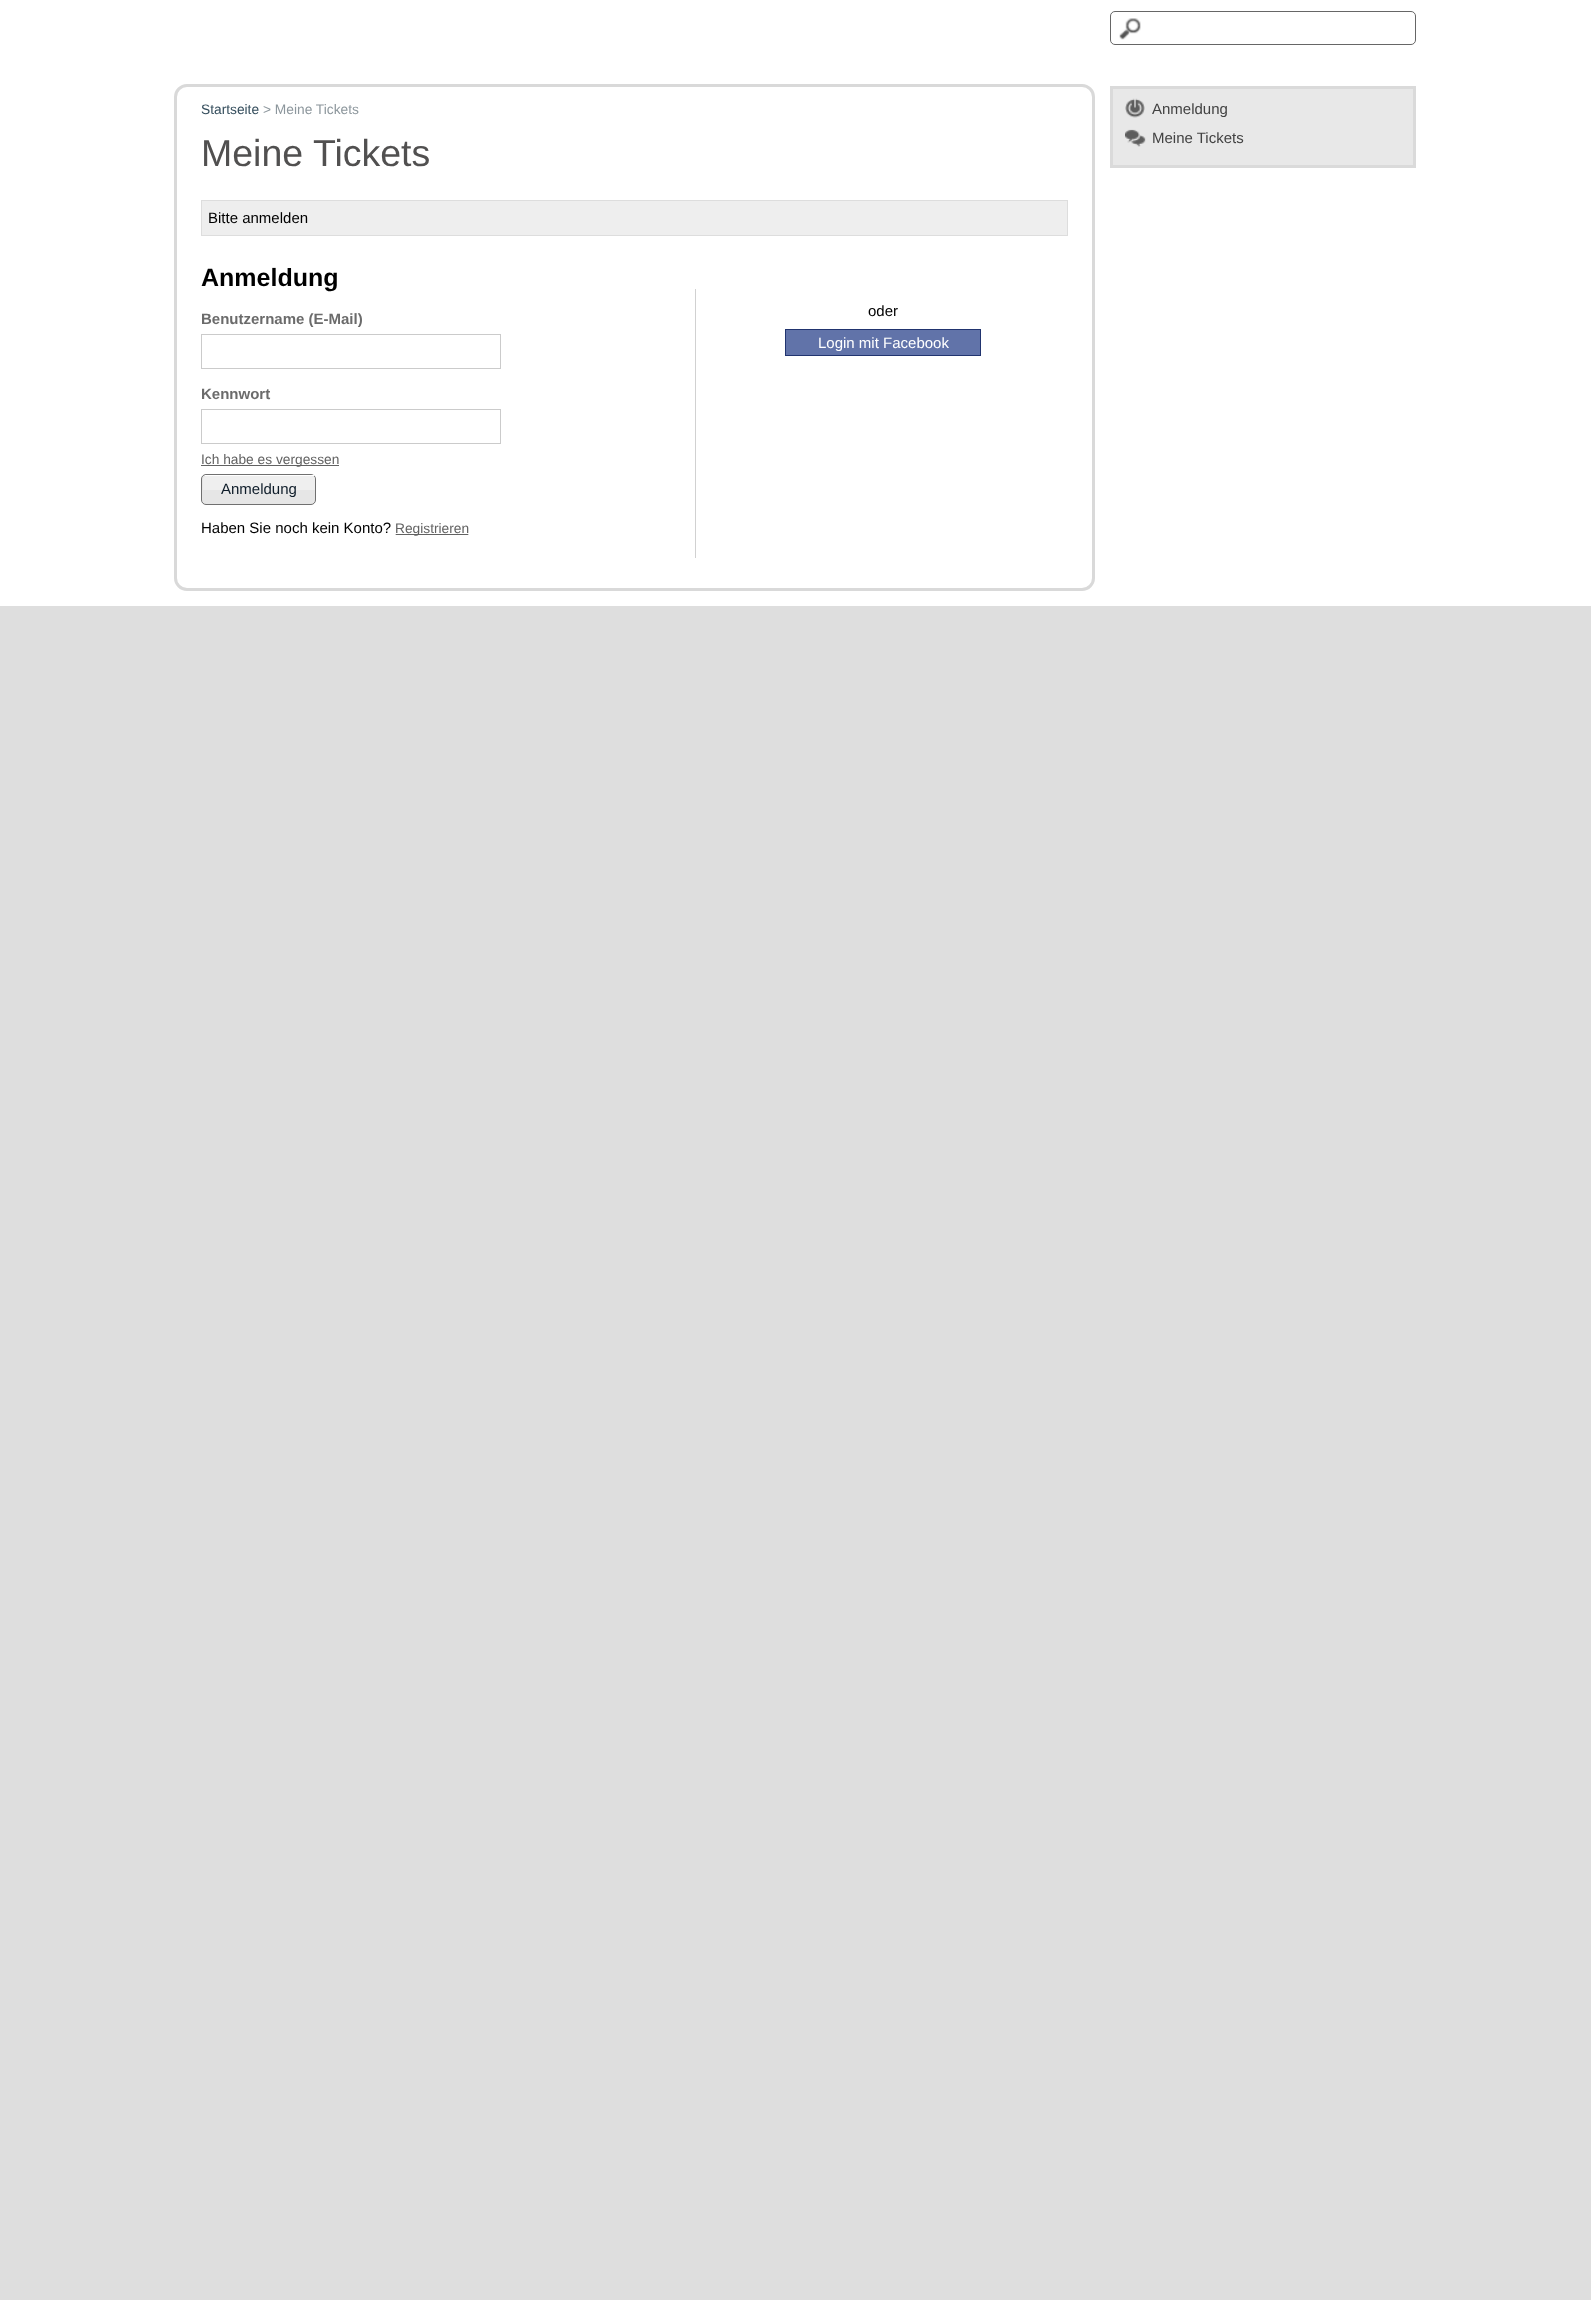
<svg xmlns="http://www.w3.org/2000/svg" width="1591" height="2300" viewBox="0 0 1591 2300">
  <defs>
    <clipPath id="clip1"><rect x="395" y="520" width="74" height="16" rx="4"/></clipPath>
  </defs>
  <rect width="100%" height="100%" fill="#dedede"/>
  <rect x="0" y="0" width="1591" height="606" fill="#ffffff"/>
  <image x="1119" y="18" width="22" height="22" href="img1.png"/>
  <rect x="1110.5" y="11.5" width="305" height="33" rx="4.5" fill="none" stroke="#666666"/>
  <rect x="175.5" y="85.5" width="918" height="504" rx="11.5" fill="none" stroke="#d9d9d9" stroke-width="3"/>
  <text x="201" y="114" font-family="Liberation Sans" font-size="13.75" fill="#344d5c">Startseite</text>
  <text x="263" y="114" font-family="Liberation Sans" font-size="13.75" fill="#8d979d">&gt; Meine Tickets</text>
  <text x="201" y="166" font-family="Liberation Sans" font-size="37.5" fill="#515050">Meine Tickets</text>
  <rect x="201.5" y="200.5" width="866" height="35" fill="#eeeeee" stroke="#dddddd"/>
  <text x="208" y="223" font-family="Liberation Sans" font-size="15" fill="#000000">Bitte anmelden</text>
  <text x="201" y="286" font-family="Liberation Sans" font-size="25" font-weight="bold" fill="#000000">Anmeldung</text>
  <rect x="695" y="289" width="1" height="269" fill="#d1d1d1"/>
  <text x="201" y="324" font-family="Liberation Sans" font-size="15" font-weight="bold" fill="#6b6b6b">Benutzername (E-Mail)</text>
  <rect x="201.5" y="334.5" width="299" height="34" fill="none" stroke="#cbcbcb"/>
  <text x="201" y="399" font-family="Liberation Sans" font-size="15" font-weight="bold" fill="#6b6b6b">Kennwort</text>
  <rect x="201.5" y="409.5" width="299" height="34" fill="none" stroke="#cbcbcb"/>
  <rect x="201" y="465" width="138" height="1" fill="#626262"/>
  <text x="201" y="464" font-family="Liberation Sans" font-size="13.75" fill="#626262">Ich habe es vergessen</text>
  <rect x="201.5" y="474.5" width="114" height="30" rx="4.5" fill="#e6e6e6" stroke="#707070"/>
  <rect x="205" y="475" width="109" height="1" fill="#ffffff"/>
  <path d="M206 476C205 476 204 477 203 478V490H315V479C315 477 313 476 311 476Z" fill="#efefef"/>
  <text x="221" y="494" font-family="Liberation Sans" font-size="15" fill="#0e1c29">Anmeldung</text>
  <text x="201" y="533" font-family="Liberation Sans" font-size="15" fill="#000000">Haben Sie noch kein Konto?</text>
  <g clip-path="url(#clip1)">
    <rect x="395" y="534" width="74" height="1" fill="#626262"/>
  </g>
  <text x="395" y="533" font-family="Liberation Sans" font-size="13.75" fill="#626262">Registrieren</text>
  <text x="868" y="316" font-family="Liberation Sans" font-size="15" fill="#000000">oder</text>
  <rect x="785.5" y="329.5" width="195" height="26" fill="#6173a9" stroke="#21346f"/>
  <text x="818" y="348" font-family="Liberation Sans" font-size="15" fill="#ffffff">Login mit Facebook</text>
  <rect x="1111.5" y="87.5" width="303" height="79" fill="#e8e8e8" stroke="#dadada" stroke-width="3"/>
  <image x="1125" y="98" width="20" height="20" href="img2.png"/>
  <text x="1152" y="114" font-family="Liberation Sans" font-size="15" fill="#424242">Anmeldung</text>
  <image x="1125" y="129" width="21" height="18" href="img3.png"/>
  <text x="1152" y="143" font-family="Liberation Sans" font-size="15" fill="#424242">Meine Tickets</text>
</svg>
